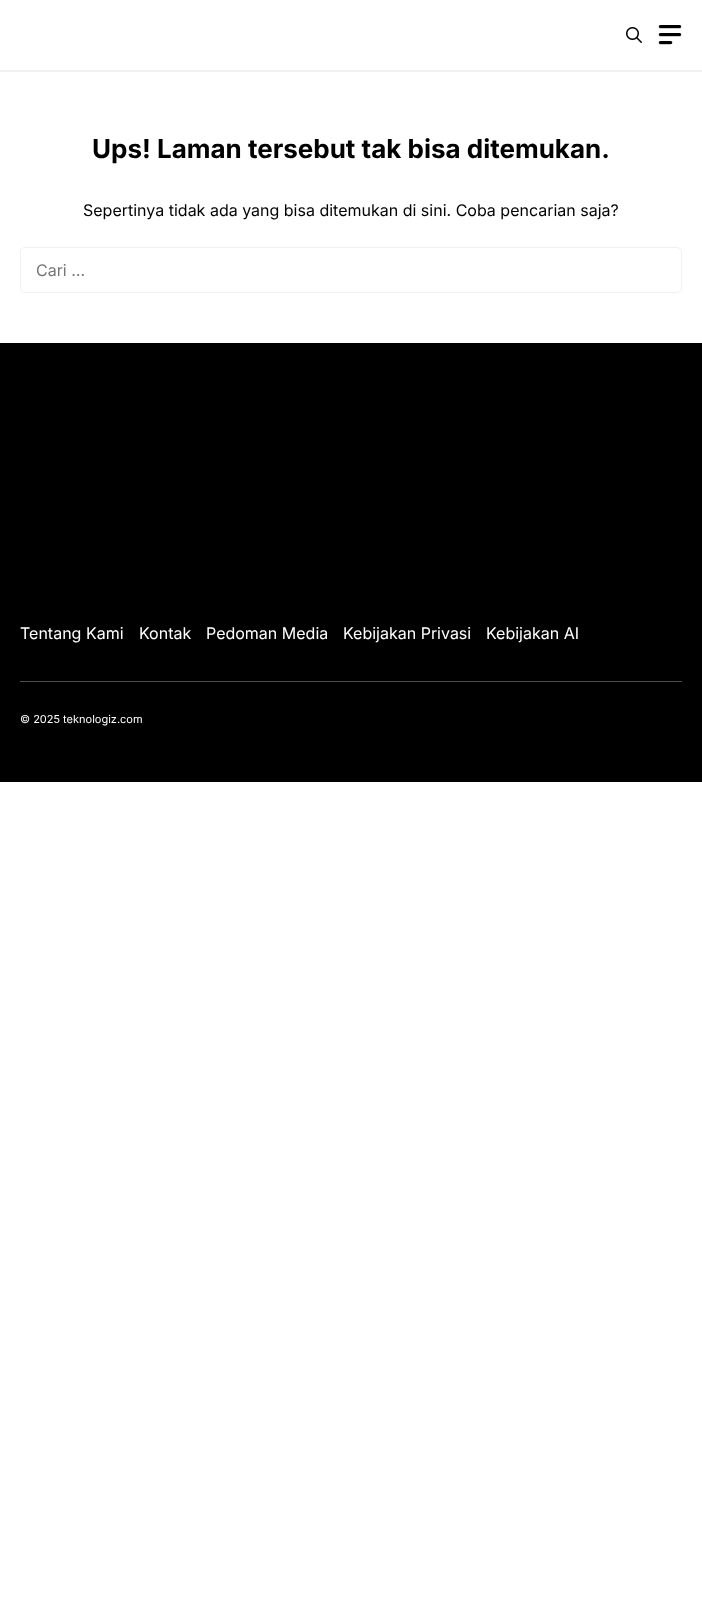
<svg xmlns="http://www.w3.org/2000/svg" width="702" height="1601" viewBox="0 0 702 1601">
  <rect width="100%" height="100%" fill="#ffffff"/>
  <rect x="0" y="70" width="702" height="2" fill="#f1f1f1"/>
  <image x="626" y="27" width="16" height="16" href="img1.png"/>
  <image x="658" y="25" width="24" height="20" href="img2.png"/>
  <text x="92" y="158" font-family="Inter" font-size="26" font-weight="bold" fill="#000000">Ups! Laman tersebut tak bisa ditemukan.</text>
  <text x="83" y="216" font-family="Inter" font-size="16" fill="#000000">Sepertinya tidak ada yang bisa ditemukan di sini. Coba pencarian saja?</text>
  <rect x="20.5" y="247.5" width="661" height="45" rx="4.5" fill="none" stroke="#f1f1f1"/>
  <text x="36" y="276" font-family="Inter" font-size="16" fill="#757575">Cari …</text>
  <rect x="0" y="343" width="702" height="439" fill="#000000"/>
  <text x="20" y="639" font-family="Inter" font-size="16" fill="#ffffff">Tentang Kami</text>
  <text x="139" y="639" font-family="Inter" font-size="16" fill="#ffffff">Kontak</text>
  <text x="206" y="639" font-family="Inter" font-size="16" fill="#ffffff">Pedoman Media</text>
  <text x="343" y="639" font-family="Inter" font-size="16" fill="#ffffff">Kebijakan Privasi</text>
  <text x="486" y="639" font-family="Inter" font-size="16" fill="#ffffff">Kebijakan AI</text>
  <rect x="20" y="681" width="662" height="1" fill="#4d4d4d"/>
  <text x="20" y="723" font-family="Inter" font-size="11" fill="#ffffff">© 2025 teknologiz.com</text>
</svg>
